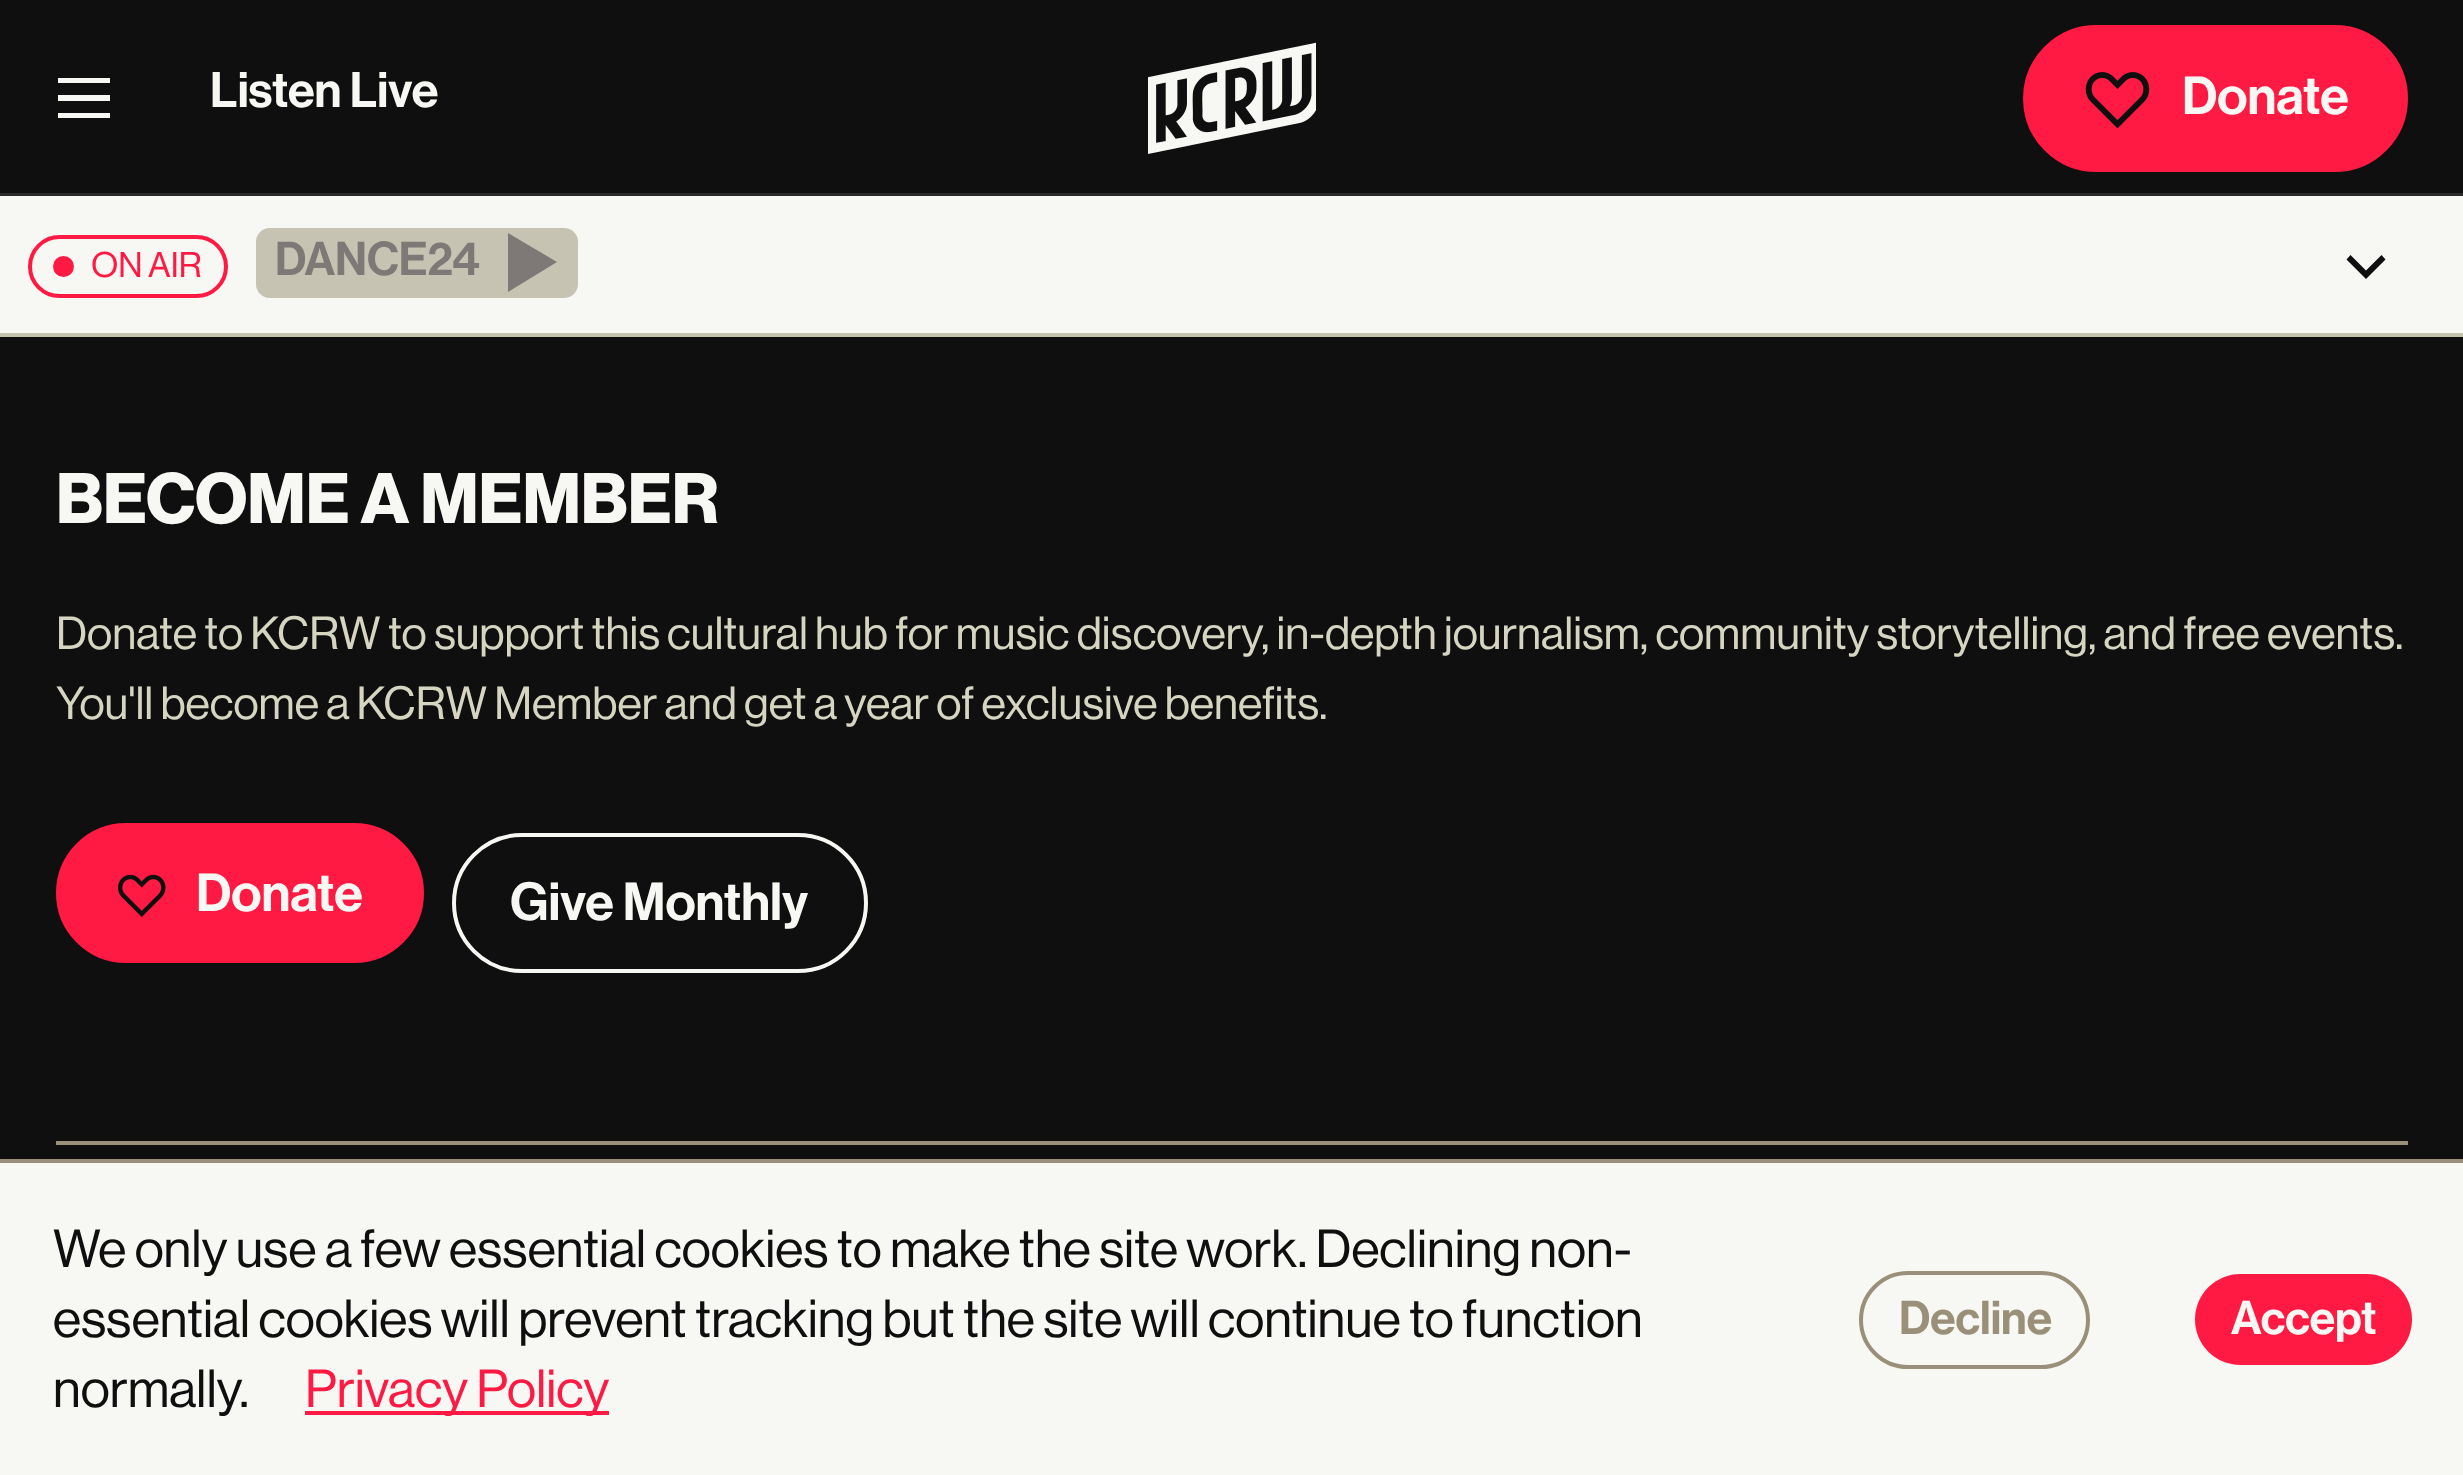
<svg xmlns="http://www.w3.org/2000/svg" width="2463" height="1475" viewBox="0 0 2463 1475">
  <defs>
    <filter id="blur1" x="-50%" y="-200%" width="200%" height="500%"><feGaussianBlur stdDeviation="7"/></filter>
  </defs>
  <rect width="100%" height="100%" fill="#0f0f0f"/>
  <rect x="0" y="193" width="2463" height="3" fill="#f7f7f3" fill-opacity="0.12"/>
  <path d="M58 78H110V83H58ZM58 95H110V101H58ZM110 113H58V118H110Z" fill="#f7f7f3" fill-rule="evenodd"/>
  <text x="210" y="107" font-family="'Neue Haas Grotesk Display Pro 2'" font-size="49" font-weight="500" fill="#f7f7f3">Listen Live</text>
  <image x="1148" y="42" width="168" height="112" href="img1.png"/>
  <rect x="2025" y="27" width="381" height="143" rx="71.5" fill="#ff1a44" stroke="#ff1a44" stroke-width="4"/>
  <image x="2085" y="72" width="65" height="57" href="img2.png"/>
  <text x="2182" y="114" font-family="'Neue Haas Grotesk Display Pro 2'" font-size="52.5" font-weight="500" fill="#f7f7f3">Donate</text>
  <rect x="0" y="196" width="2463" height="137" fill="#f7f7f3"/>
  <rect x="0" y="333" width="2463" height="4" fill="#c7c4ae"/>
  <rect x="30" y="237" width="196" height="59" rx="29.5" fill="none" stroke="#ff1a44" stroke-width="4"/>
  <circle cx="63.5" cy="266.5" r="10.5" fill="#ff1a44"/>
  <text x="91" y="277" font-family="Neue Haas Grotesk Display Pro" font-size="35" font-weight="500" fill="#ff1a44">ON AIR</text>
  <rect x="256" y="228" width="322" height="70" rx="14" fill="#efefef"/>
  <rect x="256" y="228" width="322" height="70" rx="14" fill="#b6b19a" fill-opacity="0.7"/>
  <text x="275" y="275" font-family="'Neue Haas Grotesk Display Pro 2'" font-size="46.5" font-weight="500" fill="#7e7976">DANCE24</text>
  <path d="M508 233V292L557 262Z" fill="#7e7976"/>
  <path d="M2346.5 259.5L2350.5 255L2366 270.5L2381.5 255L2385.5 259.5L2366 279Z" fill="#100f0f" fill-rule="evenodd"/>
  <text x="56" y="523" font-family="Neue Haas Grotesk Display Pro" font-size="70" font-weight="bold" fill="#f7f7f3">BECOME A MEMBER</text>
  <text x="56" y="649" font-family="Neue Haas Grotesk Display Pro" font-size="45.5" font-weight="500" fill="#d6d5c2">Donate to KCRW to support this cultural hub for music discovery, in-depth journalism, community storytelling, and free events.</text>
  <text x="56" y="719" font-family="Neue Haas Grotesk Display Pro" font-size="45.5" font-weight="500" fill="#d6d5c2">You'll become a KCRW Member and get a year of exclusive benefits.</text>
  <rect x="58" y="825" width="364" height="136" rx="68" fill="#ff1a44" stroke="#ff1a44" stroke-width="4"/>
  <image x="118" y="874" width="48" height="43" href="img3.png"/>
  <text x="196" y="911" font-family="'Neue Haas Grotesk Display Pro 2'" font-size="52.5" font-weight="500" fill="#f7f7f3">Donate</text>
  <rect x="454" y="835" width="412" height="136" rx="68" fill="none" stroke="#f7f7f3" stroke-width="4"/>
  <text x="510" y="920" font-family="'Neue Haas Grotesk Display Pro 2'" font-size="52.5" font-weight="500" fill="#f7f7f3">Give Monthly</text>
  <rect x="56" y="1141" width="2352" height="4" fill="#9a9079"/>
  <rect x="0" y="1166" width="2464" height="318" fill="#670511" fill-opacity="0.25" filter="url(#blur1)"/>
  <rect x="0" y="1163" width="2463" height="312" fill="#f7f7f3"/>
  <rect x="0" y="1159" width="2463" height="4" fill="#9a9079"/>
  <text x="53" y="1267" font-family="Neue Haas Grotesk Display Pro" font-size="52.5" font-weight="500" fill="#0f0f0f">We only use a few essential cookies to make the site work. Declining non-</text>
  <text x="53" y="1337" font-family="Neue Haas Grotesk Display Pro" font-size="52.5" font-weight="500" fill="#0f0f0f">essential cookies will prevent tracking but the site will continue to function</text>
  <text x="53" y="1407" font-family="Neue Haas Grotesk Display Pro" font-size="52.5" font-weight="500" fill="#0f0f0f">normally.</text>
  <rect x="305" y="1411" width="304" height="4" fill="#ff1a44"/>
  <text x="305" y="1407" font-family="Neue Haas Grotesk Display Pro" font-size="52.5" font-weight="500" fill="#ff1a44">Privacy Policy</text>
  <rect x="1861" y="1273" width="227" height="94" rx="47" fill="none" stroke="#9a9079" stroke-width="4"/>
  <text x="1899" y="1334" font-family="'Neue Haas Grotesk Display Pro 2'" font-size="46.5" font-weight="500" fill="#9a9079">Decline</text>
  <rect x="2195" y="1274" width="217" height="91" rx="45.5" fill="#ff1a44"/>
  <text x="2231" y="1334" font-family="'Neue Haas Grotesk Display Pro 2'" font-size="46.5" font-weight="500" fill="#f7f7f3">Accept</text>
</svg>
